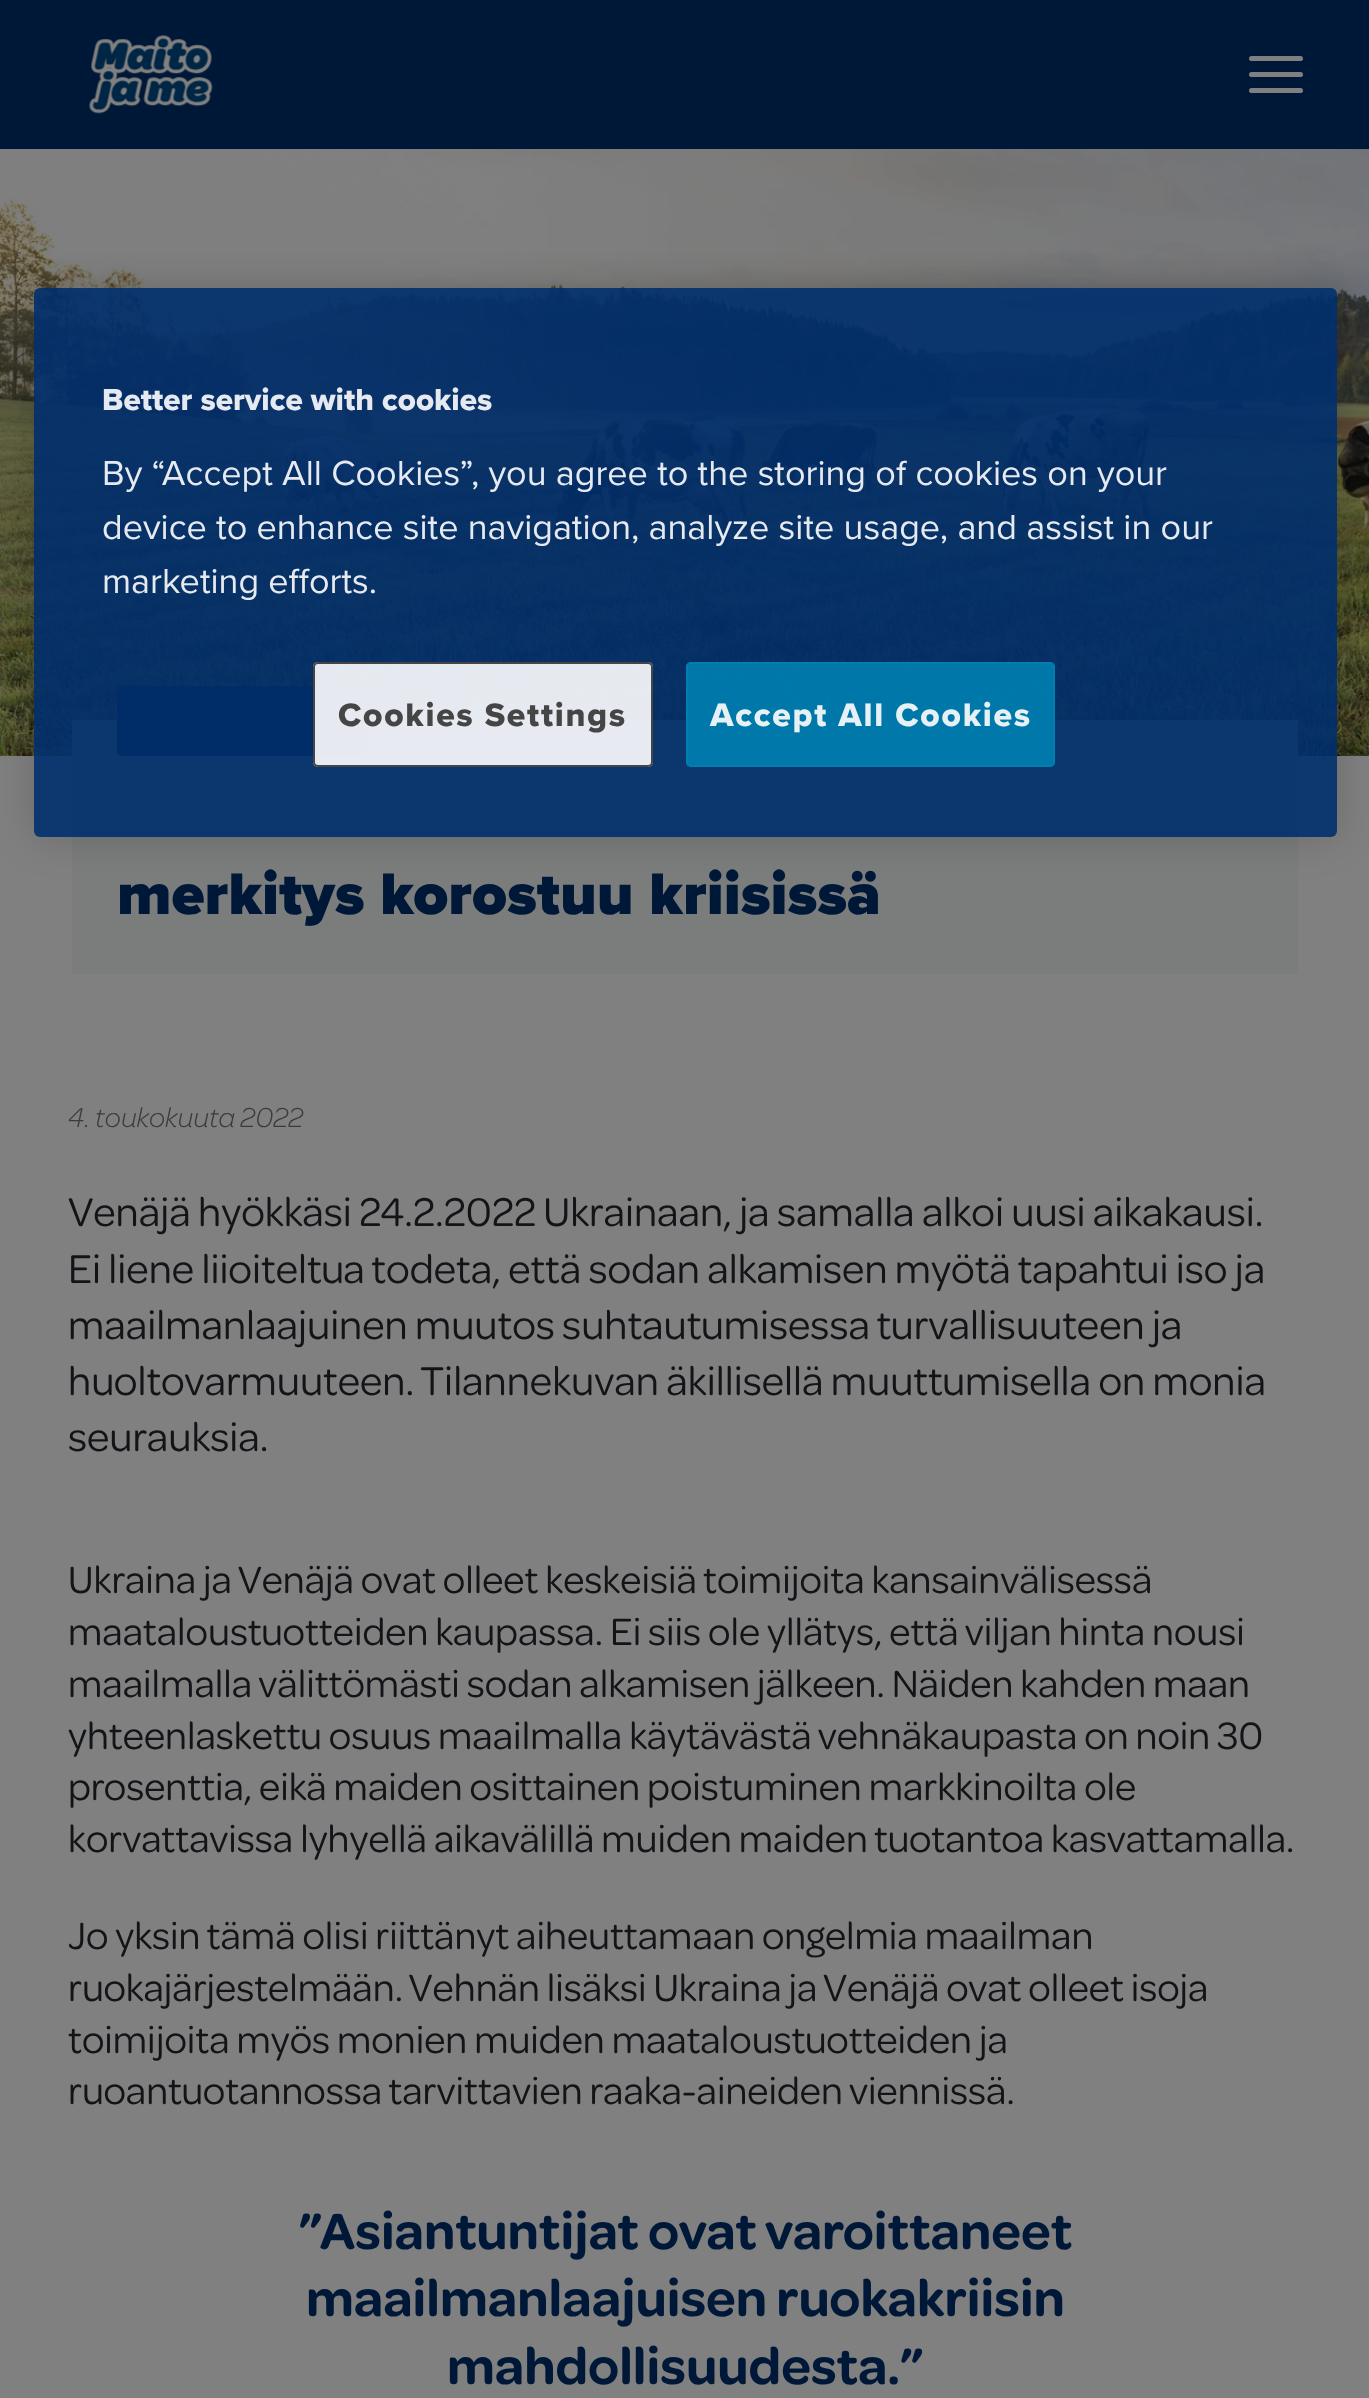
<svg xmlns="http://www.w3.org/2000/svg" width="1369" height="2398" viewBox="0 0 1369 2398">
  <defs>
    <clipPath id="clip1"><path d="M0 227H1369V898H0ZM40 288H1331C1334.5 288 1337 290.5 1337 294V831C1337 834.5 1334.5 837 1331 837H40C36.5 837 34 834.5 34 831V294C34 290.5 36.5 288 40 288Z" clip-rule="evenodd"/></clipPath>
    <filter id="blur1" x="-50%" y="-200%" width="200%" height="500%"><feGaussianBlur stdDeviation="20"/></filter>
  </defs>
  <rect width="100%" height="100%" fill="#808080"/>
  <rect x="0" y="0" width="1369" height="149" fill="#001837"/>
  <image x="89" y="35" width="124" height="79" href="img1.png"/>
  <rect x="1249" y="56" width="54" height="5" rx="2.5" fill="#808080"/>
  <rect x="1249" y="72" width="54" height="5" rx="2.5" fill="#808080"/>
  <rect x="1249" y="88" width="54" height="5" rx="2.5" fill="#808080"/>
  <image x="0" y="149" width="1369" height="607" href="img2.png"/>
  <rect x="72" y="720" width="1226" height="254" fill="#7b7c7c"/>
  <rect x="117" y="686" width="250" height="70" rx="5" fill="#001837"/>
  <g clip-path="url(#clip1)">
    <rect x="34" y="288" width="1303" height="549" rx="6" fill="#000000" fill-opacity="0.18" filter="url(#blur1)"/>
  </g>
  <rect x="34" y="288" width="1303" height="549" rx="6" fill="#002f6d" fill-opacity="0.9"/>
  <text x="102" y="410" font-family="Proxima Nova" font-size="31.5" font-weight="800" fill="#e6eaf0">Better service with cookies</text>
  <text x="102" y="485" font-family="Proxima Nova" font-size="36" fill="#e6eaf0">By “Accept All Cookies”, you agree to the storing of cookies on your</text>
  <text x="102" y="539" font-family="Proxima Nova" font-size="36" fill="#e6eaf0">device to enhance site navigation, analyze site usage, and assist in our</text>
  <text x="102" y="593" font-family="Proxima Nova" font-size="36" fill="#e6eaf0">marketing efforts.</text>
  <rect x="313" y="662" width="340" height="105" rx="5" fill="#ffffff" fill-opacity="0.9"/>
  <rect x="314" y="663" width="338" height="103" rx="4" fill="none" stroke="#333333" stroke-opacity="0.9" stroke-width="2"/>
  <text x="338" y="726" font-family="Proxima Nova" font-size="33.75" font-weight="800" letter-spacing="1.7" fill="#454546">Cookies Settings</text>
  <rect x="686" y="662" width="369" height="105" rx="5" fill="#007fb0" fill-opacity="0.9"/>
  <rect x="687" y="663" width="367" height="103" rx="4" fill="none" stroke="#007fb0" stroke-opacity="0.9" stroke-width="2"/>
  <text x="710" y="726" font-family="Proxima Nova" font-size="33.75" font-weight="800" letter-spacing="1.7" fill="#e6f1f6">Accept All Cookies</text>
  <text x="117" y="914" font-family="Proxima Nova" font-size="60.75" font-weight="900" fill="#001837">merkitys korostuu kriisissä</text>
  <text x="68" y="1127" font-family="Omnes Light" font-size="29.25" font-weight="300" font-style="italic" fill="#3b3b3b">4. toukokuuta 2022</text>
  <text x="68" y="1226" font-family="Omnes" font-size="42.75" fill="#121417">Venäjä hyökkäsi 24.2.2022 Ukrainaan, ja samalla alkoi uusi aikakausi.</text>
  <text x="68" y="1283" font-family="Omnes" font-size="42.75" fill="#121417">Ei liene liioiteltua todeta, että sodan alkamisen myötä tapahtui iso ja</text>
  <text x="68" y="1339" font-family="Omnes" font-size="42.75" fill="#121417">maailmanlaajuinen muutos suhtautumisessa turvallisuuteen ja</text>
  <text x="68" y="1395" font-family="Omnes" font-size="42.75" fill="#121417">huoltovarmuuteen. Tilannekuvan äkillisellä muuttumisella on monia</text>
  <text x="68" y="1451" font-family="Omnes" font-size="42.75" fill="#121417">seurauksia.</text>
  <text x="68" y="1593" font-family="Omnes" font-size="40.5" fill="#121417">Ukraina ja Venäjä ovat olleet keskeisiä toimijoita kansainvälisessä</text>
  <text x="68" y="1645" font-family="Omnes" font-size="40.5" fill="#121417">maataloustuotteiden kaupassa. Ei siis ole yllätys, että viljan hinta nousi</text>
  <text x="68" y="1697" font-family="Omnes" font-size="40.5" fill="#121417">maailmalla välittömästi sodan alkamisen jälkeen. Näiden kahden maan</text>
  <text x="68" y="1749" font-family="Omnes" font-size="40.5" fill="#121417">yhteenlaskettu osuus maailmalla käytävästä vehnäkaupasta on noin 30</text>
  <text x="68" y="1800" font-family="Omnes" font-size="40.5" fill="#121417">prosenttia, eikä maiden osittainen poistuminen markkinoilta ole</text>
  <text x="68" y="1852" font-family="Omnes" font-size="40.5" fill="#121417">korvattavissa lyhyellä aikavälillä muiden maiden tuotantoa kasvattamalla.</text>
  <text x="68" y="1949" font-family="Omnes" font-size="40.5" fill="#121417">Jo yksin tämä olisi riittänyt aiheuttamaan ongelmia maailman</text>
  <text x="68" y="2001" font-family="Omnes" font-size="40.5" fill="#121417">ruokajärjestelmään. Vehnän lisäksi Ukraina ja Venäjä ovat olleet isoja</text>
  <text x="68" y="2053" font-family="Omnes" font-size="40.5" fill="#121417">toimijoita myös monien muiden maataloustuotteiden ja</text>
  <text x="68" y="2104" font-family="Omnes" font-size="40.5" fill="#121417">ruoantuotannossa tarvittavien raaka-aineiden viennissä.</text>
  <text x="299" y="2249" font-family="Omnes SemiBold" font-size="54" font-weight="600" fill="#001837">”Asiantuntijat ovat varoittaneet</text>
  <text x="306" y="2316" font-family="Omnes SemiBold" font-size="54" font-weight="600" fill="#001837">maailmanlaajuisen ruokakriisin</text>
  <text x="447" y="2384" font-family="Omnes SemiBold" font-size="54" font-weight="600" fill="#001837">mahdollisuudesta.”</text>
</svg>
